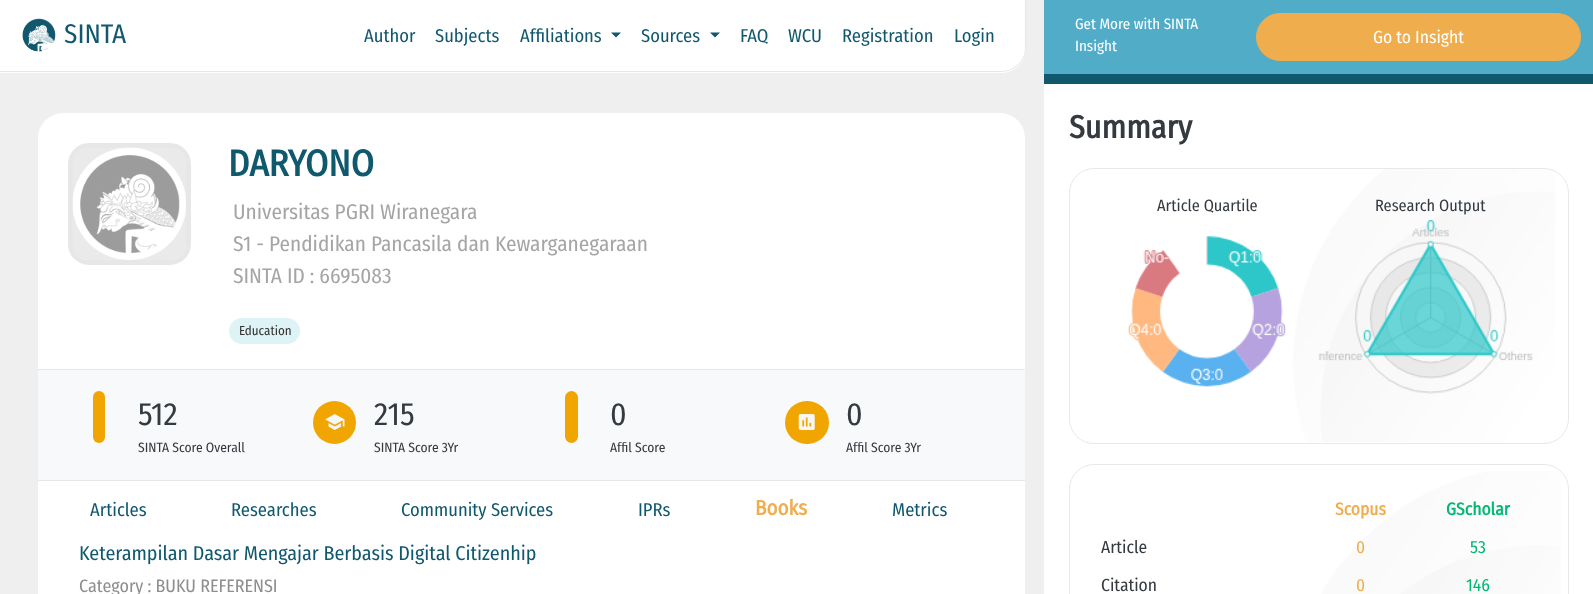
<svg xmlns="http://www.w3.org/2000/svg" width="1593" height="594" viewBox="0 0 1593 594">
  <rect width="100%" height="100%" fill="#efefef"/>
  <path d="M0 0H1026V48C1026 62 1015 73 1001 73H0Z" fill="#ffffff"/>
  <path d="M0 0H1026V48C1026 61 1015 72 1001 72H0ZM0 0H1025V48C1025 61 1014 71 1001 71H0Z" fill="#e7e7e7" fill-rule="evenodd"/>
  <image x="22" y="18" width="34" height="34" href="img1.png"/>
  <text x="64" y="43" font-family="Fira Sans Condensed" font-size="27" fill="#10586e">SINTA</text>
  <text x="364" y="42" font-family="Fira Sans Condensed" font-size="18.5" fill="#10586e">Author</text>
  <text x="435" y="42" font-family="Fira Sans Condensed" font-size="18.5" fill="#10586e">Subjects</text>
  <text x="520" y="42" font-family="Fira Sans Condensed" font-size="18.5" fill="#10586e">Affiliations</text>
  <path d="M611 32.5H621L616 37.5Z" fill="#10586e"/>
  <text x="641" y="42" font-family="Fira Sans Condensed" font-size="18.5" fill="#10586e">Sources</text>
  <path d="M710 32.5H720L715 37.5Z" fill="#10586e"/>
  <text x="740" y="42" font-family="Fira Sans Condensed" font-size="18.5" fill="#10586e">FAQ</text>
  <text x="788" y="42" font-family="Fira Sans Condensed" font-size="18.5" fill="#10586e">WCU</text>
  <text x="842" y="42" font-family="Fira Sans Condensed" font-size="18.5" fill="#10586e">Registration</text>
  <text x="954" y="42" font-family="Fira Sans Condensed" font-size="18.5" fill="#10586e">Login</text>
  <rect x="38" y="113" width="987" height="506" rx="25" fill="#ffffff"/>
  <rect x="70.5" y="145.5" width="118" height="117" rx="18.5" fill="none" stroke="#e7e7e7" stroke-width="5"/>
  <image x="72" y="147" width="114" height="113" href="img2.png"/>
  <text x="228" y="176" font-family="Fira Sans Condensed" font-size="37" font-weight="bold" fill="#10586e">DARYONO</text>
  <text x="233" y="219" font-family="Fira Sans Condensed" font-size="21.25" fill="#a5a5a5">Universitas PGRI Wiranegara</text>
  <text x="233" y="251" font-family="Fira Sans Condensed" font-size="21.25" fill="#a5a5a5">S1 - Pendidikan Pancasila dan Kewarganegaraan</text>
  <text x="233" y="283" font-family="Fira Sans Condensed" font-size="21.25" fill="#a5a5a5">SINTA ID : 6695083</text>
  <rect x="229" y="318" width="71" height="26" rx="13" fill="#ddf3f5"/>
  <text x="239" y="335" font-family="Fira Sans Condensed" font-size="13" fill="#323232">Education</text>
  <rect x="38" y="370" width="987" height="110" fill="#f8f9fa"/>
  <rect x="38" y="369" width="987" height="1" fill="#e7e7e7"/>
  <rect x="38" y="480" width="987" height="1" fill="#e7e7e7"/>
  <rect x="93" y="391" width="12" height="52" rx="6" fill="#f0a500"/>
  <text x="138" y="425" font-family="Fira Sans Condensed" font-size="32" fill="#343a40">512</text>
  <text x="138" y="452" font-family="Fira Sans Condensed" font-size="13.5" fill="#343a40">SINTA Score Overall</text>
  <circle cx="334.5" cy="422.5" r="21.5" fill="#f0a500"/>
  <image x="325" y="414" width="20" height="16" href="img3.png"/>
  <text x="374" y="425" font-family="Fira Sans Condensed" font-size="32" fill="#343a40">215</text>
  <text x="374" y="452" font-family="Fira Sans Condensed" font-size="13.5" fill="#343a40">SINTA Score 3Yr</text>
  <rect x="565" y="391" width="13" height="52" rx="6.5" fill="#f0a500"/>
  <text x="610" y="425" font-family="Fira Sans Condensed" font-size="32" fill="#343a40">0</text>
  <text x="610" y="452" font-family="Fira Sans Condensed" font-size="13.5" fill="#343a40">Affil Score</text>
  <rect x="785" y="401" width="44" height="43" rx="21.5" fill="#f0a500"/>
  <image x="798" y="414" width="17" height="16" href="img4.png"/>
  <text x="846" y="425" font-family="Fira Sans Condensed" font-size="32" fill="#343a40">0</text>
  <text x="846" y="452" font-family="Fira Sans Condensed" font-size="13.5" fill="#343a40">Affil Score 3Yr</text>
  <text x="90" y="516" font-family="Fira Sans Condensed" font-size="18.5" fill="#10586e">Articles</text>
  <text x="231" y="516" font-family="Fira Sans Condensed" font-size="18.5" fill="#10586e">Researches</text>
  <text x="401" y="516" font-family="Fira Sans Condensed" font-size="18.5" fill="#10586e">Community Services</text>
  <text x="638" y="516" font-family="Fira Sans Condensed" font-size="18.5" fill="#10586e">IPRs</text>
  <text x="755" y="515" font-family="Fira Sans Condensed" font-size="21" font-weight="bold" fill="#f0ad4e">Books</text>
  <text x="892" y="516" font-family="Fira Sans Condensed" font-size="18.5" fill="#10586e">Metrics</text>
  <text x="79" y="560" font-family="Fira Sans Condensed" font-size="20" fill="#10586e">Keterampilan Dasar Mengajar Berbasis Digital Citizenhip</text>
  <text x="79" y="592" font-family="Fira Sans Condensed" font-size="18" fill="#8e8e8e">Category : BUKU REFERENSI</text>
  <rect x="1044" y="0" width="549" height="74" fill="#50acc7"/>
  <rect x="1044" y="74" width="549" height="10" fill="#10586e"/>
  <text x="1075" y="29" font-family="Fira Sans Condensed" font-size="15" fill="#ffffff">Get More with SINTA</text>
  <text x="1075" y="51" font-family="Fira Sans Condensed" font-size="15" fill="#ffffff">Insight</text>
  <rect x="1256.5" y="13.5" width="324" height="47" rx="23.5" fill="#f0ad4e" stroke="#f0ad4e"/>
  <text x="1373" y="43" font-family="Fira Sans Condensed" font-size="17.5" fill="#ffffff">Go to Insight</text>
  <rect x="1044" y="84" width="549" height="510" fill="#ffffff"/>
  <text x="1069" y="138" font-family="Fira Sans Condensed" font-size="32" font-weight="bold" fill="#343a40">Summary</text>
  <image x="1293" y="169" width="262" height="273" href="img5.png"/>
  <rect x="1069.5" y="168.5" width="499" height="275" rx="24.5" fill="none" stroke="#e8e8e8"/>
  <text x="1157" y="211" font-family="Fira Sans Condensed" font-size="16.25" fill="#343a40">Article Quartile</text>
  <image x="1127" y="236" width="160" height="151" href="img6.png"/>
  <text x="1375" y="211" font-family="Fira Sans Condensed" font-size="16.25" fill="#343a40">Research Output</text>
  <image x="1318" y="219" width="215" height="175" href="img7.png"/>
  <image x="1322" y="471" width="239" height="123" href="img8.png"/>
  <rect x="1069.5" y="464.5" width="499" height="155" rx="24.5" fill="none" stroke="#e8e8e8"/>
  <text x="1335" y="515" font-family="Fira Sans Condensed" font-size="17.5" font-weight="bold" fill="#f0ad4e">Scopus</text>
  <text x="1446" y="515" font-family="Fira Sans Condensed" font-size="17.5" font-weight="bold" fill="#02b875">GScholar</text>
  <text x="1101" y="553" font-family="Fira Sans Condensed" font-size="17.5" fill="#343a40">Article</text>
  <text x="1356" y="553" font-family="Fira Sans Condensed" font-size="17.5" fill="#f0ad4e">0</text>
  <text x="1470" y="553" font-family="Fira Sans Condensed" font-size="17.5" fill="#02b875">53</text>
  <text x="1101" y="591" font-family="Fira Sans Condensed" font-size="17.5" fill="#343a40">Citation</text>
  <text x="1356" y="591" font-family="Fira Sans Condensed" font-size="17.5" fill="#f0ad4e">0</text>
  <text x="1466" y="591" font-family="Fira Sans Condensed" font-size="17.5" fill="#02b875">146</text>
</svg>
